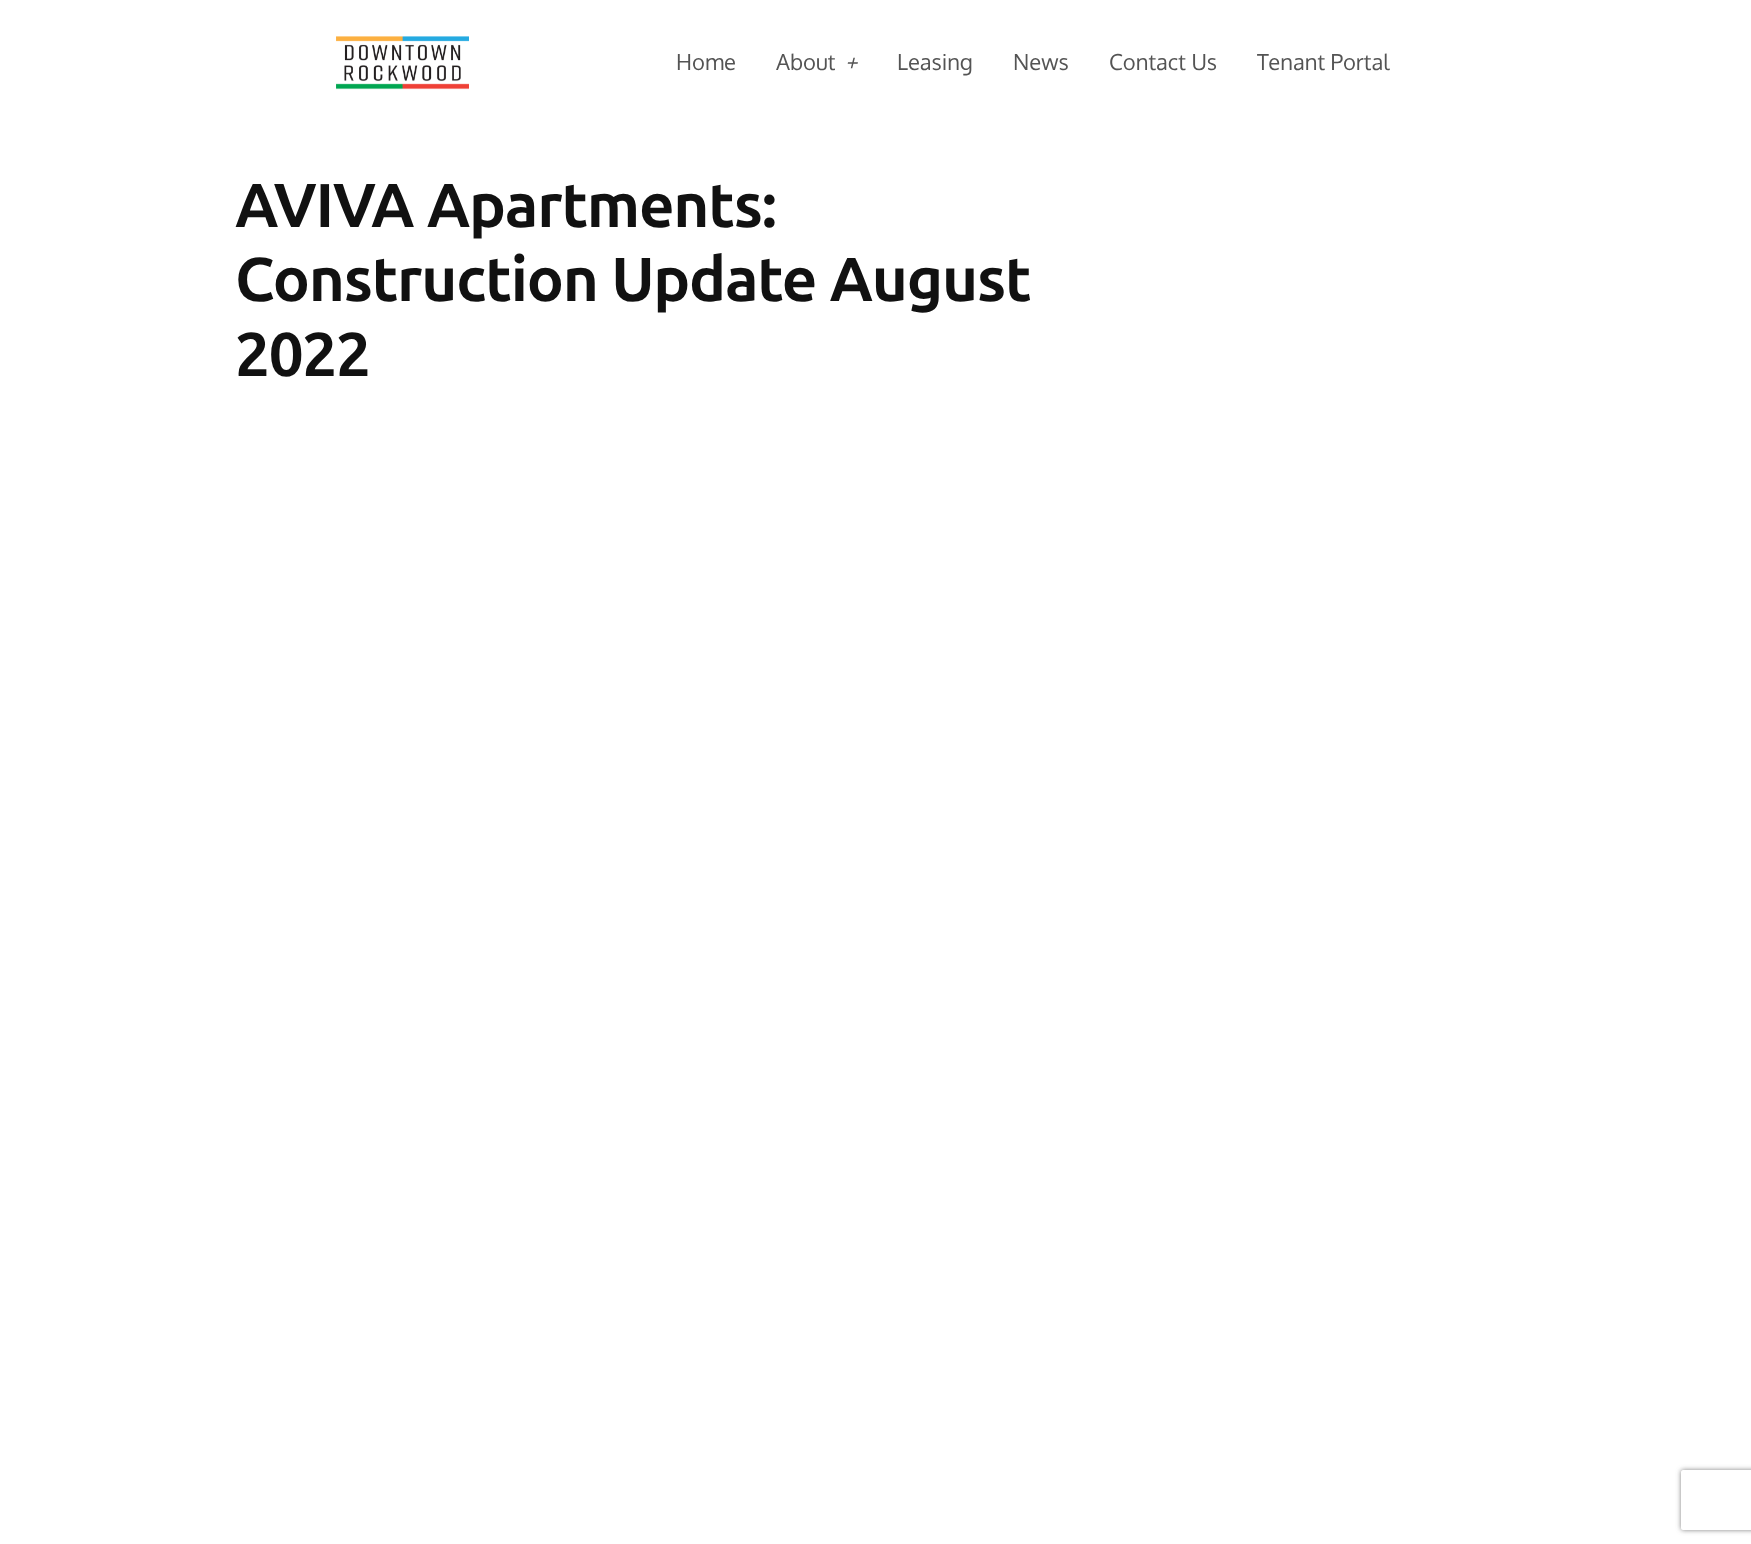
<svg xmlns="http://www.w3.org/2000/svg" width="1751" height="1544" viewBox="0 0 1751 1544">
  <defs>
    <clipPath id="clip1"><path d="M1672 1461H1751V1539H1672ZM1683 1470H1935C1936 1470 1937 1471 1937 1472V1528C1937 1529 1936 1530 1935 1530H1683C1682 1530 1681 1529 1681 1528V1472C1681 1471 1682 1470 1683 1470Z" clip-rule="evenodd"/></clipPath>
    <filter id="blur1" x="-50%" y="-200%" width="200%" height="500%"><feGaussianBlur stdDeviation="2.5"/></filter>
  </defs>
  <rect width="100%" height="100%" fill="#ffffff"/>
  <image x="336" y="36" width="133" height="54" href="img1.png"/>
  <text x="676" y="70" font-family="Oxygen" font-size="22" fill="#545454">Home</text>
  <text x="776" y="70" font-family="Oxygen" font-size="22" fill="#545454">About</text>
  <text x="845" y="70" font-family="Oxygen" font-size="22" font-style="italic" fill="#545454">+</text>
  <text x="897" y="70" font-family="Oxygen" font-size="22" fill="#545454">Leasing</text>
  <text x="1013" y="70" font-family="Oxygen" font-size="22" fill="#545454">News</text>
  <text x="1109" y="70" font-family="Oxygen" font-size="22" fill="#545454">Contact Us</text>
  <text x="1257" y="70" font-family="Oxygen" font-size="22" fill="#545454">Tenant Portal</text>
  <text x="235" y="227" font-family="Ubuntu" font-size="61.9" font-weight="bold" letter-spacing="-1.25" fill="#111111">AVIVA Apartments:</text>
  <text x="235" y="301" font-family="Ubuntu" font-size="61.9" font-weight="bold" letter-spacing="-1.25" fill="#111111">Construction Update August</text>
  <text x="235" y="376" font-family="Ubuntu" font-size="61.9" font-weight="bold" letter-spacing="-1.25" fill="#111111">2022</text>
  <g clip-path="url(#clip1)">
    <rect x="1681" y="1470" width="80" height="60" rx="2" fill="#808080" filter="url(#blur1)"/>
  </g>
</svg>
